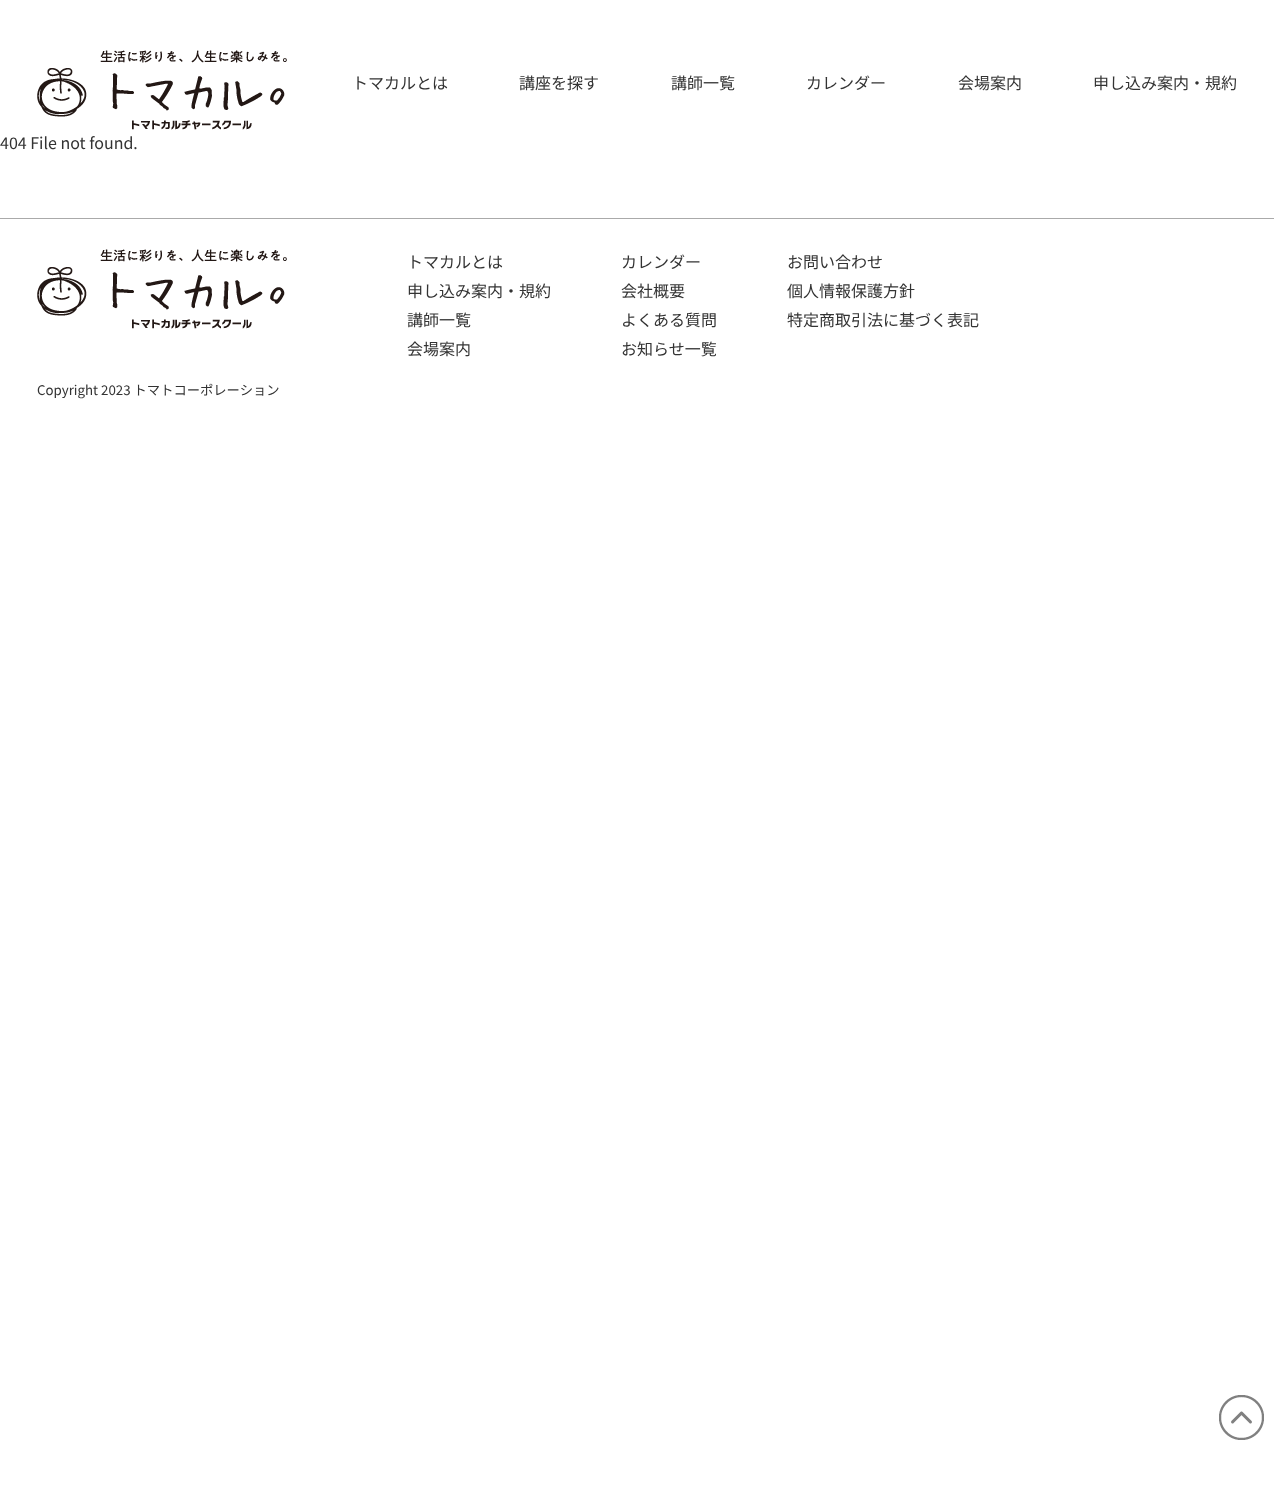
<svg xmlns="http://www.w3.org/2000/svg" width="1274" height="1486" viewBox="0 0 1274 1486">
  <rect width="100%" height="100%" fill="#ffffff"/>
  <image x="37" y="50" width="250" height="80" href="img1.png"/>
  <text x="352" y="89" font-family="Noto Sans CJK JP" font-size="16" fill="#333333">トマカルとは</text>
  <text x="519" y="89" font-family="Noto Sans CJK JP" font-size="16" fill="#333333">講座を探す</text>
  <text x="671" y="89" font-family="Noto Sans CJK JP" font-size="16" fill="#333333">講師一覧</text>
  <text x="806" y="89" font-family="Noto Sans CJK JP" font-size="16" fill="#333333">カレンダー</text>
  <text x="958" y="89" font-family="Noto Sans CJK JP" font-size="16" fill="#333333">会場案内</text>
  <text x="1093" y="89" font-family="Noto Sans CJK JP" font-size="16" fill="#333333">申し込み案内・規約</text>
  <text x="0" y="149" font-family="Noto Sans CJK JP" font-size="16" fill="#333333">404 File not found.</text>
  <rect x="0" y="218" width="1274" height="1" fill="#aaaaaa"/>
  <image x="37" y="249" width="250" height="80" href="img1.png"/>
  <text x="407" y="268" font-family="Noto Sans CJK JP" font-size="16" fill="#333333">トマカルとは</text>
  <text x="407" y="297" font-family="Noto Sans CJK JP" font-size="16" fill="#333333">申し込み案内・規約</text>
  <text x="407" y="326" font-family="Noto Sans CJK JP" font-size="16" fill="#333333">講師一覧</text>
  <text x="407" y="355" font-family="Noto Sans CJK JP" font-size="16" fill="#333333">会場案内</text>
  <text x="621" y="268" font-family="Noto Sans CJK JP" font-size="16" fill="#333333">カレンダー</text>
  <text x="621" y="297" font-family="Noto Sans CJK JP" font-size="16" fill="#333333">会社概要</text>
  <text x="621" y="326" font-family="Noto Sans CJK JP" font-size="16" fill="#333333">よくある質問</text>
  <text x="621" y="355" font-family="Noto Sans CJK JP" font-size="16" fill="#333333">お知らせ一覧</text>
  <text x="787" y="268" font-family="Noto Sans CJK JP" font-size="16" fill="#333333">お問い合わせ</text>
  <text x="787" y="297" font-family="Noto Sans CJK JP" font-size="16" fill="#333333">個人情報保護方針</text>
  <text x="787" y="326" font-family="Noto Sans CJK JP" font-size="16" fill="#333333">特定商取引法に基づく表記</text>
  <text x="37" y="395" font-family="Noto Sans CJK JP" font-size="13.3" fill="#333333">Copyright 2023 トマトコーポレーション</text>
  <image x="1219" y="1395" width="45" height="45" href="img2.png"/>
</svg>
